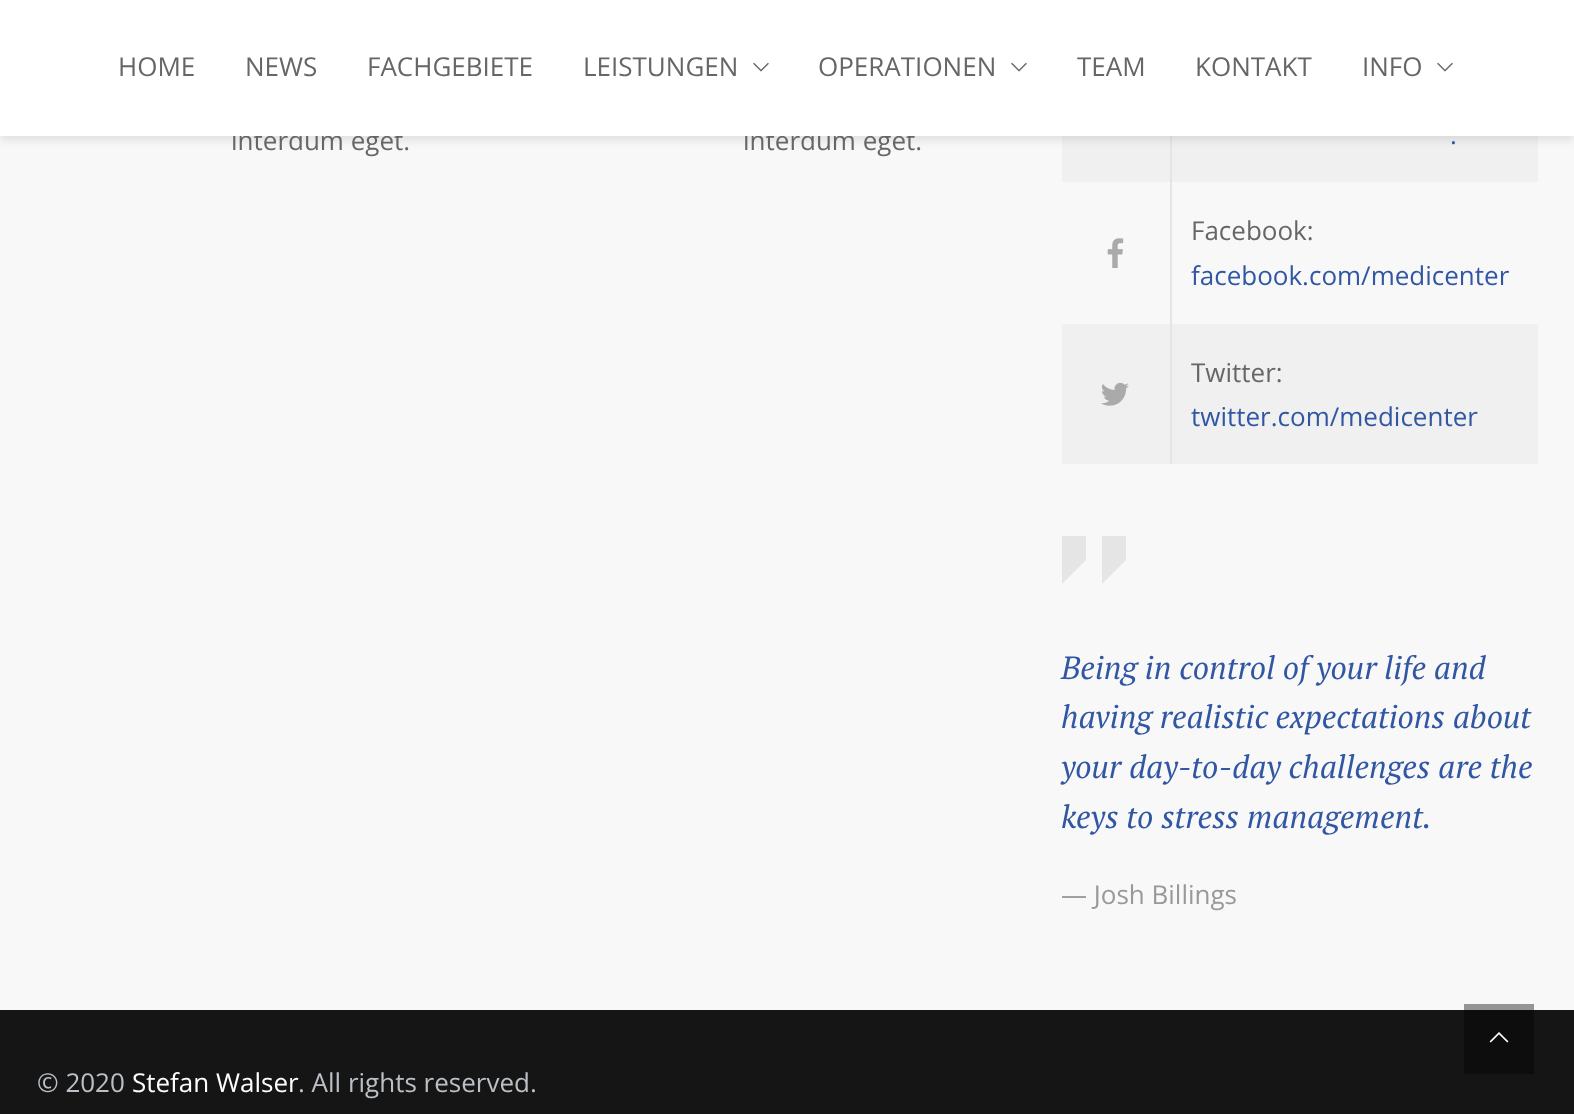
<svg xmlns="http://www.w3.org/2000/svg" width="1574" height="1114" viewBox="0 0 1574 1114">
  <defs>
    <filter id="blur1" x="-50%" y="-200%" width="200%" height="500%"><feGaussianBlur stdDeviation="5"/></filter>
  </defs>
  <rect width="100%" height="100%" fill="#f8f8f8"/>
  <rect x="1464" y="1004" width="70" height="6" fill="#959595"/>
  <rect x="1062" y="136" width="476" height="46" fill="#f0f0f0"/>
  <rect x="1170" y="136" width="2" height="188" fill="#e5e5e5"/>
  <rect x="0" y="4" width="1574" height="136" fill="#000000" fill-opacity="0.1" filter="url(#blur1)"/>
  <text x="231" y="150" font-family="Open Sans" font-size="26" fill="#666666">interdum eget.</text>
  <text x="743" y="150" font-family="Open Sans" font-size="26" fill="#666666">interdum eget.</text>
  <rect x="0" y="0" width="1574" height="136" fill="#ffffff"/>
  <text x="118" y="76" font-family="Open Sans" font-size="26" fill="#666666">HOME</text>
  <text x="245" y="76" font-family="Open Sans" font-size="26" fill="#666666">NEWS</text>
  <text x="367" y="76" font-family="Open Sans" font-size="26" fill="#666666">FACHGEBIETE</text>
  <text x="583" y="76" font-family="Open Sans" font-size="26" fill="#666666">LEISTUNGEN</text>
  <image x="753" y="62" width="16" height="10" href="img1.png"/>
  <text x="818" y="76" font-family="Open Sans" font-size="26" fill="#666666">OPERATIONEN</text>
  <image x="1011" y="62" width="16" height="10" href="img1.png"/>
  <text x="1077" y="76" font-family="Open Sans" font-size="26" fill="#666666">TEAM</text>
  <text x="1195" y="76" font-family="Open Sans" font-size="26" fill="#666666">KONTAKT</text>
  <text x="1362" y="76" font-family="Open Sans" font-size="26" fill="#666666">INFO</text>
  <image x="1437" y="62" width="16" height="10" href="img1.png"/>
  <text x="1450" y="144" font-family="Open Sans" font-size="26" fill="#3156a3">.</text>
  <image x="1107" y="238" width="17" height="30" href="img2.png"/>
  <text x="1191" y="240" font-family="Open Sans" font-size="26" fill="#666666">Facebook:</text>
  <text x="1191" y="285" font-family="Open Sans" font-size="26" fill="#3156a3">facebook.com/medicenter</text>
  <rect x="1062" y="324" width="476" height="140" fill="#f0f0f0"/>
  <rect x="1170" y="324" width="2" height="140" fill="#e5e5e5"/>
  <image x="1101" y="382" width="28" height="24" href="img3.png"/>
  <text x="1191" y="382" font-family="Open Sans" font-size="26" fill="#666666">Twitter:</text>
  <text x="1191" y="426" font-family="Open Sans" font-size="26" fill="#3156a3">twitter.com/medicenter</text>
  <path d="M1062 536V584L1086 560V536ZM1102 536V584L1126 560V536Z" fill="#e5e5e5"/>
  <text x="1061" y="679" font-family="PT Serif" font-size="32" font-style="italic" fill="#3156a3">Being in control of your life and</text>
  <text x="1061" y="728" font-family="PT Serif" font-size="32" font-style="italic" fill="#3156a3">having realistic expectations about</text>
  <text x="1061" y="778" font-family="PT Serif" font-size="32" font-style="italic" fill="#3156a3">your day-to-day challenges are the</text>
  <text x="1061" y="828" font-family="PT Serif" font-size="32" font-style="italic" fill="#3156a3">keys to stress management.</text>
  <text x="1061" y="904" font-family="Open Sans" font-size="26" fill="#999999">— Josh Billings</text>
  <rect x="0" y="1010" width="1574" height="104" fill="#151515"/>
  <rect x="1464" y="1010" width="70" height="64" fill="#0d0d0d"/>
  <text x="37" y="1092" font-family="Open Sans" font-size="26" fill="#bac0c5">© 2020</text>
  <text x="132" y="1092" font-family="Open Sans" font-size="26" fill="#ffffff">Stefan Walser</text>
  <text x="298" y="1092" font-family="Open Sans" font-size="26" fill="#bac0c5">. All rights reserved.</text>
  <image x="1489" y="1032" width="20" height="11" href="img4.png"/>
</svg>
